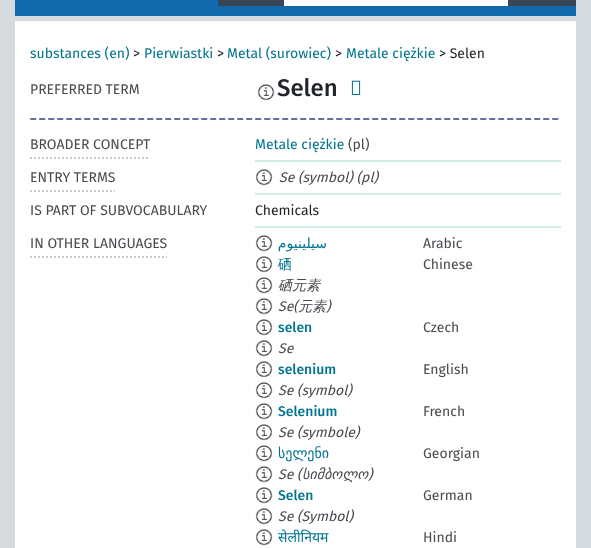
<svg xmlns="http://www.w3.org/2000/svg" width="591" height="548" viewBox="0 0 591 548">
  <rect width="100%" height="100%" fill="#d5dbde"/>
  <rect x="15" y="0" width="561" height="16" fill="#116aab"/>
  <rect x="283" y="0" width="226" height="6" fill="#ffffff"/>
  <rect x="218" y="0" width="66" height="6" fill="#394554"/>
  <rect x="508" y="0" width="68" height="6" fill="#394554"/>
  <rect x="15" y="21" width="561" height="527" fill="#ffffff"/>
  <text x="30" y="58" font-family="Fira Sans" font-size="14" fill="#00748f">substances (en)</text>
  <text x="133" y="58" font-family="Fira Sans" font-size="14" fill="#212529">&gt;</text>
  <text x="144" y="58" font-family="Fira Sans" font-size="14" fill="#00748f">Pierwiastki</text>
  <text x="217" y="58" font-family="Fira Sans" font-size="14" fill="#212529">&gt;</text>
  <text x="227" y="58" font-family="Fira Sans" font-size="14" fill="#00748f">Metal (surowiec)</text>
  <text x="335" y="58" font-family="Fira Sans" font-size="14" fill="#212529">&gt;</text>
  <text x="346" y="58" font-family="Fira Sans" font-size="14" fill="#00748f">Metale ciężkie</text>
  <text x="439" y="58" font-family="Fira Sans" font-size="14" fill="#212529">&gt; Selen</text>
  <text x="30" y="94" font-family="Fira Sans" font-size="14" fill="#474b4f">PREFERRED TERM</text>
  <image x="257" y="84" width="18" height="17" href="img1.png"/>
  <text x="277" y="96" font-family="Fira Sans" font-size="24" font-weight="500" fill="#212529">Selen</text>
  <image x="351" y="80" width="10" height="15" href="img2.png"/>
  <image x="30" y="118" width="529" height="2" href="img3.png"/>
  <path d="M30 158H150" fill="none" stroke="#cccccc" stroke-width="2" stroke-dasharray="2 2"/>
  <text x="30" y="149" font-family="Fira Sans" font-size="14" fill="#474b4f">BROADER CONCEPT</text>
  <rect x="255" y="160" width="306" height="2" fill="#d4edeb"/>
  <text x="255" y="149" font-family="Fira Sans" font-size="14" fill="#00748f">Metale ciężkie</text>
  <text x="348" y="149" font-family="Fira Sans" font-size="14" fill="#474b4f">(pl)</text>
  <path d="M30 191H115" fill="none" stroke="#cccccc" stroke-width="2" stroke-dasharray="2 2"/>
  <text x="30" y="182" font-family="Fira Sans" font-size="14" fill="#474b4f">ENTRY TERMS</text>
  <rect x="255" y="193" width="306" height="2" fill="#d4edeb"/>
  <image x="255" y="169" width="18" height="17" href="img4.png"/>
  <text x="279" y="182" font-family="Fira Sans" font-size="14" font-style="italic" fill="#474b4f">Se (symbol) (pl)</text>
  <text x="30" y="215" font-family="Fira Sans" font-size="14" fill="#474b4f">IS PART OF SUBVOCABULARY</text>
  <rect x="255" y="226" width="306" height="2" fill="#d4edeb"/>
  <text x="255" y="215" font-family="Fira Sans" font-size="14" fill="#212529">Chemicals</text>
  <path d="M30 257H167" fill="none" stroke="#cccccc" stroke-width="2" stroke-dasharray="2 2"/>
  <text x="30" y="248" font-family="Fira Sans" font-size="14" fill="#474b4f">IN OTHER LANGUAGES</text>
  <image x="255" y="235" width="18" height="17" href="img5.png"/>
  <text x="327" y="248" font-family="DejaVu Sans" font-size="14" direction="rtl" fill="#00748f">سيلينيوم</text>
  <text x="423" y="248" font-family="Fira Sans" font-size="14" fill="#474b4f">Arabic</text>
  <image x="255" y="256" width="18" height="17" href="img1.png"/>
  <text x="278" y="269" font-family="WenQuanYi Zen Hei" font-size="14" font-weight="500" fill="#00748f">硒</text>
  <text x="423" y="269" font-family="Fira Sans" font-size="14" fill="#474b4f">Chinese</text>
  <image x="255" y="277" width="18" height="17" href="img1.png"/>
  <text x="278" y="290" font-family="WenQuanYi Zen Hei" font-size="14" font-weight="500" font-style="italic" fill="#474b4f">硒元素</text>
  <image x="255" y="298" width="18" height="17" href="img1.png"/>
  <text x="278" y="311" font-family="Fira Sans" font-size="14" font-style="italic" fill="#474b4f">Se(</text>
  <text x="298" y="311" font-family="WenQuanYi Zen Hei" font-size="14" font-weight="500" font-style="italic" fill="#474b4f">元素</text>
  <text x="326" y="311" font-family="Fira Sans" font-size="14" font-style="italic" fill="#474b4f">)</text>
  <image x="255" y="319" width="18" height="17" href="img1.png"/>
  <text x="278" y="332" font-family="Fira Sans" font-size="14" font-weight="500" fill="#00748f">selen</text>
  <text x="423" y="332" font-family="Fira Sans" font-size="14" fill="#474b4f">Czech</text>
  <image x="255" y="340" width="18" height="17" href="img1.png"/>
  <text x="278" y="353" font-family="Fira Sans" font-size="14" font-style="italic" fill="#474b4f">Se</text>
  <image x="255" y="361" width="18" height="17" href="img1.png"/>
  <text x="278" y="374" font-family="Fira Sans" font-size="14" font-weight="500" fill="#00748f">selenium</text>
  <text x="423" y="374" font-family="Fira Sans" font-size="14" fill="#474b4f">English</text>
  <image x="255" y="382" width="18" height="17" href="img1.png"/>
  <text x="278" y="395" font-family="Fira Sans" font-size="14" font-style="italic" fill="#474b4f">Se (symbol)</text>
  <image x="255" y="403" width="18" height="17" href="img1.png"/>
  <text x="278" y="416" font-family="Fira Sans" font-size="14" font-weight="500" fill="#00748f">Selenium</text>
  <text x="423" y="416" font-family="Fira Sans" font-size="14" fill="#474b4f">French</text>
  <image x="255" y="424" width="18" height="17" href="img5.png"/>
  <text x="278" y="437" font-family="Fira Sans" font-size="14" font-style="italic" fill="#474b4f">Se (symbole)</text>
  <image x="255" y="445" width="18" height="17" href="img5.png"/>
  <text x="278" y="458" font-family="DejaVu Sans" font-size="14" fill="#00748f">სელენი</text>
  <text x="423" y="458" font-family="Fira Sans" font-size="14" fill="#474b4f">Georgian</text>
  <image x="255" y="466" width="18" height="17" href="img1.png"/>
  <text x="278" y="479" font-family="Fira Sans" font-size="14" font-style="italic" fill="#474b4f">Se (</text>
  <text x="302" y="479" font-family="DejaVu Sans" font-size="14" font-style="italic" fill="#474b4f">სიმბოლო</text>
  <text x="368" y="479" font-family="Fira Sans" font-size="14" font-style="italic" fill="#474b4f">)</text>
  <image x="255" y="487" width="18" height="17" href="img1.png"/>
  <text x="278" y="500" font-family="Fira Sans" font-size="14" font-weight="500" fill="#00748f">Selen</text>
  <text x="423" y="500" font-family="Fira Sans" font-size="14" fill="#474b4f">German</text>
  <image x="255" y="508" width="18" height="17" href="img5.png"/>
  <text x="278" y="521" font-family="Fira Sans" font-size="14" font-style="italic" fill="#474b4f">Se (Symbol)</text>
  <text x="278" y="542" font-family="Noto Sans" font-size="14" fill="#00748f">सेलीनियम</text>
  <image x="255" y="529" width="18" height="17" href="img6.png"/>
  <text x="423" y="542" font-family="Fira Sans" font-size="14" fill="#474b4f">Hindi</text>
</svg>
